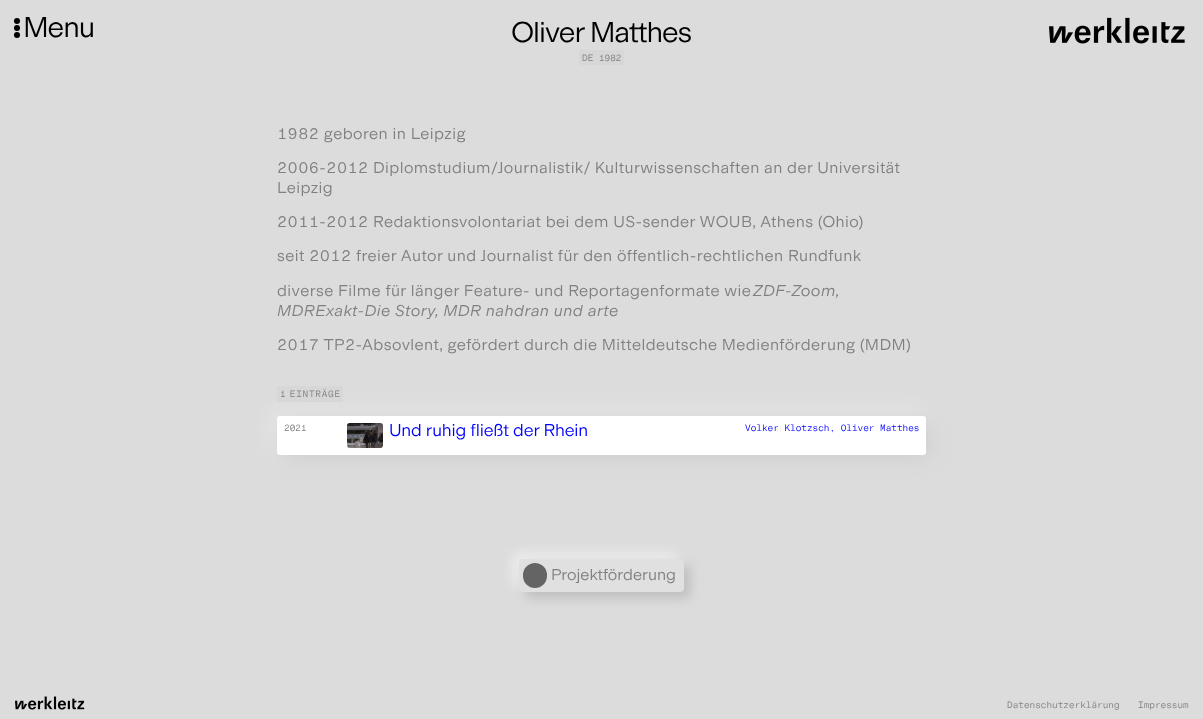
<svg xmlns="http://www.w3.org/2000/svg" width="1203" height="719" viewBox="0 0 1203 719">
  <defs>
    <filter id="blur1" x="-50%" y="-200%" width="200%" height="500%"><feGaussianBlur stdDeviation="10.5"/></filter>
    <filter id="blur2" x="-50%" y="-200%" width="200%" height="500%"><feGaussianBlur stdDeviation="6"/></filter>
  </defs>
  <rect width="100%" height="100%" fill="#dcdcdc"/>
  <circle cx="17" cy="21" r="3" fill="#000000"/>
  <circle cx="17" cy="28" r="3" fill="#000000"/>
  <circle cx="17" cy="35" r="3" fill="#000000"/>
  <text x="23" y="37" font-family="'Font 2'" font-size="29" font-weight="300" letter-spacing="-1" fill="#000000">Menu</text>
  <text x="511" y="42" font-family="'Font 2'" font-size="29" font-weight="300" letter-spacing="-1" fill="#000000">Oliver Matthes</text>
  <rect x="579" y="50" width="45" height="15" rx="1.5" fill="#d7d7d7"/>
  <text x="582" y="61" font-family="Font" font-size="9.4" font-weight="300" fill="#808080">DE 1982</text>
  <text x="277" y="139" font-family="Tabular" font-size="15.9" font-weight="300" letter-spacing="0.43" fill="#808080">1982 geboren in Leipzig</text>
  <text x="277" y="173" font-family="Tabular" font-size="15.9" font-weight="300" letter-spacing="0.43" fill="#808080">2006-2012 Diplomstudium/Journalistik/ Kulturwissenschaften an der Universität</text>
  <text x="277" y="193" font-family="'Font 2'" font-size="15.9" font-weight="300" letter-spacing="0.43" fill="#808080">Leipzig</text>
  <text x="277" y="227" font-family="Tabular" font-size="15.9" font-weight="300" letter-spacing="0.43" fill="#808080">2011-2012 Redaktionsvolontariat bei dem US-sender WOUB, Athens (Ohio)</text>
  <text x="277" y="261" font-family="Tabular" font-size="15.9" font-weight="300" letter-spacing="0.43" fill="#808080">seit 2012 freier Autor und Journalist für den öffentlich-rechtlichen Rundfunk</text>
  <text x="277" y="296" font-family="'Font 2'" font-size="15.9" font-weight="300" letter-spacing="0.43" fill="#808080">diverse Filme für länger Feature- und Reportagenformate wie</text>
  <text x="753" y="296" font-family="Font" font-size="15.9" font-weight="300" font-style="italic" letter-spacing="0.43" fill="#808080">ZDF-Zoom,</text>
  <text x="277" y="316" font-family="Font" font-size="15.9" font-weight="300" font-style="italic" letter-spacing="0.43" fill="#808080">MDRExakt-Die Story, MDR nahdran und arte</text>
  <text x="277" y="350" font-family="Tabular" font-size="15.9" font-weight="300" letter-spacing="0.43" fill="#808080">2017 TP2-Absovlent, gefördert durch die Mitteldeutsche Medienförderung (MDM)</text>
  <rect x="274" y="413" width="649" height="39" rx="3" fill="#f4f4f4" filter="url(#blur1)"/>
  <rect x="280" y="419" width="649" height="39" rx="3" fill="#c8c8c8" filter="url(#blur1)"/>
  <rect x="277" y="386" width="66" height="16" rx="1.5" fill="#d7d7d7"/>
  <text x="280" y="397" word-spacing="-3" font-family="Font" font-size="9.4" font-weight="300" letter-spacing="0.75" fill="#808080">1 EINTRÄGE</text>
  <rect x="277" y="416" width="649" height="39" rx="3" fill="#ffffff"/>
  <text x="284" y="431" font-family="Font" font-size="9.4" font-weight="300" fill="#808080">2021</text>
  <image x="347" y="423" width="36" height="25" href="img1.png"/>
  <text x="389" y="436" font-family="'Font 2'" font-size="17.25" font-weight="300" letter-spacing="-0.15" fill="#0000ff">Und ruhig fließt der Rhein</text>
  <text x="745" y="431" font-family="Font" font-size="9.4" font-weight="300" fill="#0000ff">Volker Klotzsch, Oliver Matthes</text>
  <rect x="513" y="553" width="165" height="33" rx="4" fill="#eeeeee" filter="url(#blur2)"/>
  <rect x="525" y="565" width="165" height="33" rx="4" fill="#bebebe" filter="url(#blur2)"/>
  <rect x="519" y="559" width="165" height="33" rx="4" fill="#e0e0e0"/>
  <rect x="523" y="563" width="24" height="25" rx="12" fill="#646464"/>
  <text x="551" y="580" font-family="'Font 2'" font-size="15.9" font-weight="300" fill="#808080">Projektförderung</text>
  <image x="1049" y="17" width="136" height="27" href="img2.png"/>
  <image x="15" y="696" width="70" height="14" href="img3.png"/>
  <text x="1007" y="708" font-family="Font" font-size="9.4" font-weight="300" fill="#808080">Datenschutzerklärung</text>
  <text x="1138" y="708" font-family="Font" font-size="9.4" font-weight="300" fill="#808080">Impressum</text>
</svg>
